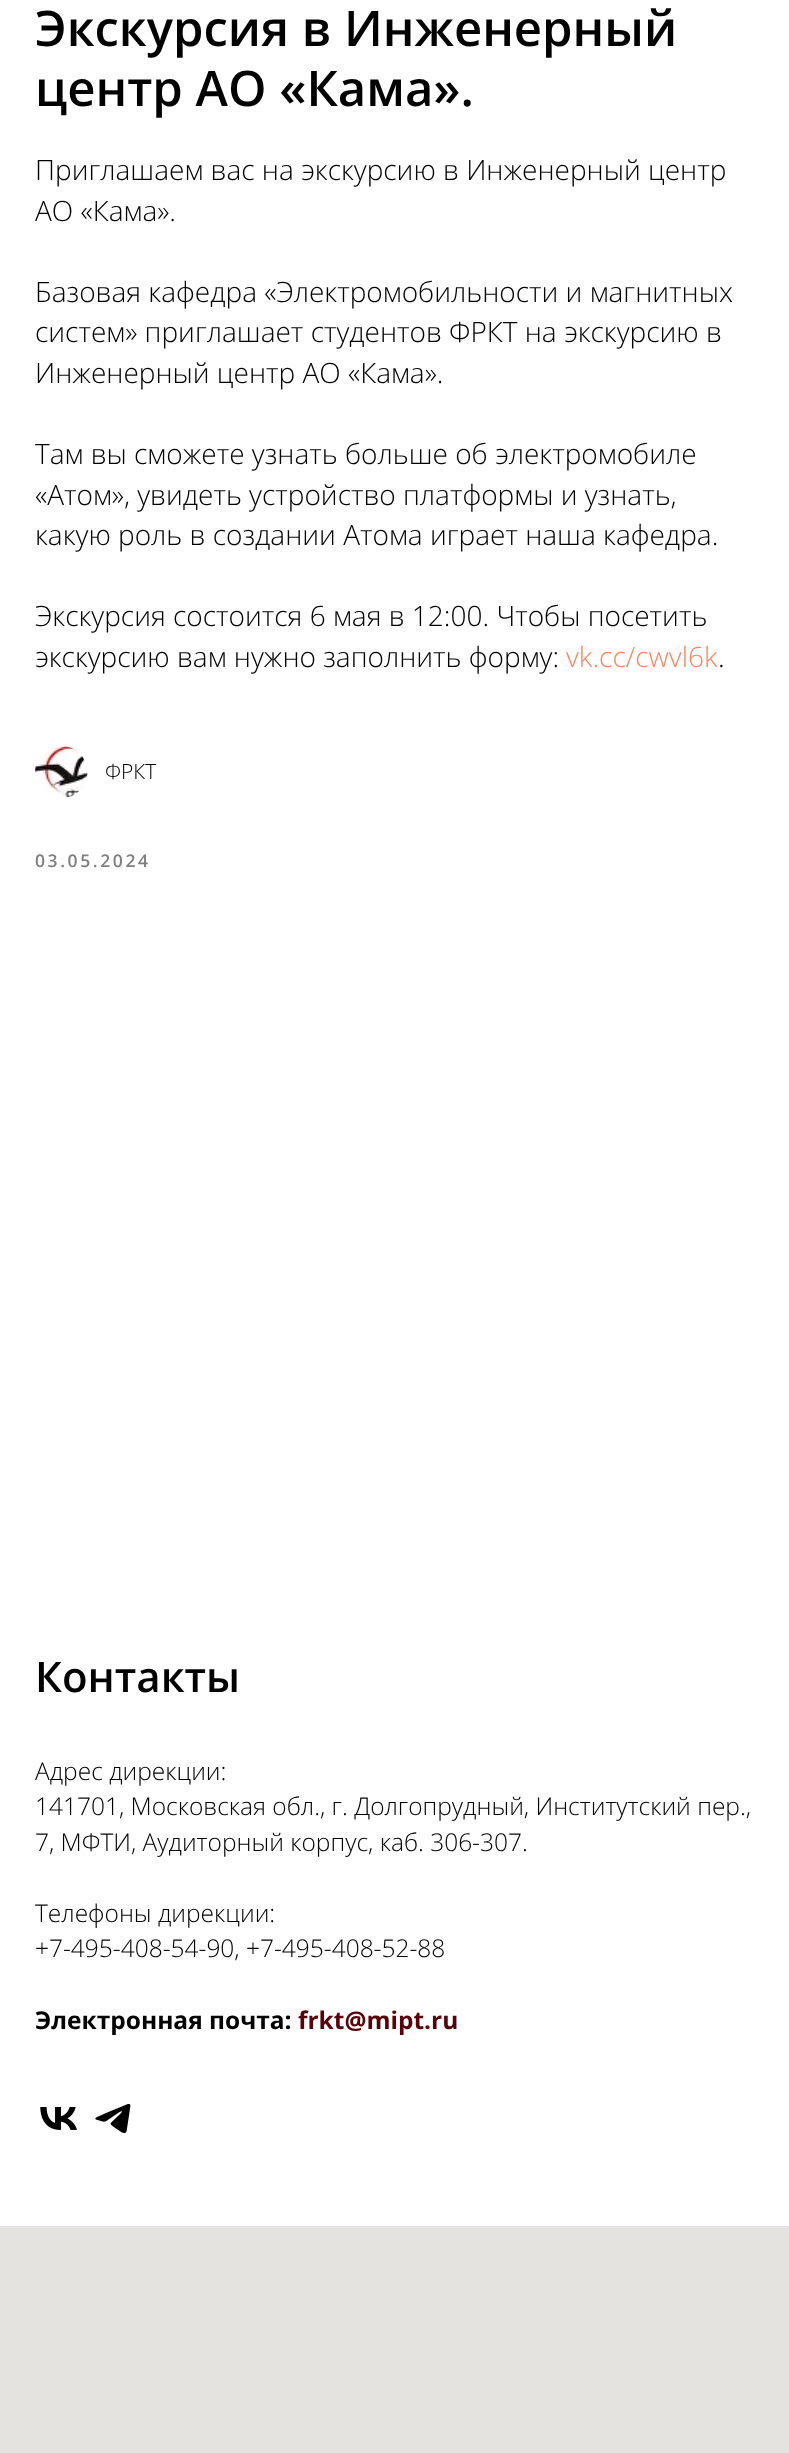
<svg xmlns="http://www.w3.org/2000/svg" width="789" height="2453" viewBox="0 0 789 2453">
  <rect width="100%" height="100%" fill="#ffffff"/>
  <text x="35" y="46" font-family="Open Sans" font-size="49" font-weight="600" fill="#000000">Экскурсия в Инженерный</text>
  <text x="35" y="106" font-family="Open Sans" font-size="49" font-weight="600" fill="#000000">центр АО «Кама».</text>
  <text x="35" y="180" font-family="Open Sans" font-size="28" font-weight="300" fill="#000000">Приглашаем вас на экскурсию в Инженерный центр</text>
  <text x="35" y="221" font-family="Open Sans" font-size="28" font-weight="300" fill="#000000">АО «Кама».</text>
  <text x="35" y="302" font-family="Open Sans" font-size="28" font-weight="300" fill="#000000">Базовая кафедра «Электромобильности и магнитных</text>
  <text x="35" y="342" font-family="Open Sans" font-size="28" font-weight="300" fill="#000000">систем» приглашает студентов ФРКТ на экскурсию в</text>
  <text x="35" y="383" font-family="Open Sans" font-size="28" font-weight="300" fill="#000000">Инженерный центр АО «Кама».</text>
  <text x="35" y="464" font-family="Open Sans" font-size="28" font-weight="300" fill="#000000">Там вы сможете узнать больше об электромобиле</text>
  <text x="35" y="505" font-family="Open Sans" font-size="28" font-weight="300" fill="#000000">«Атом», увидеть устройство платформы и узнать,</text>
  <text x="35" y="545" font-family="Open Sans" font-size="28" font-weight="300" fill="#000000">какую роль в создании Атома играет наша кафедра.</text>
  <text x="35" y="626" font-family="Open Sans" font-size="28" font-weight="300" fill="#000000">Экскурсия состоится 6 мая в 12:00. Чтобы посетить</text>
  <text x="35" y="667" font-family="Open Sans" font-size="28" font-weight="300" fill="#000000">экскурсию вам нужно заполнить форму:</text>
  <text x="566" y="667" font-family="Open Sans" font-size="28" font-weight="300" fill="#ff8562">vk.cc/cwvl6k</text>
  <text x="718" y="667" font-family="Open Sans" font-size="28" font-weight="300" fill="#000000">.</text>
  <image x="35" y="745" width="53" height="53" href="img1.png"/>
  <text x="105" y="779" font-family="Open Sans" font-size="21" font-weight="300" fill="#000000">ФРКТ</text>
  <text x="35" y="867" font-family="Open Sans" font-size="17.5" font-weight="600" letter-spacing="2.6" fill="#808080">03.05.2024</text>
  <text x="35" y="1692" font-family="Open Sans" font-size="42" font-weight="600" fill="#000000">Контакты</text>
  <text x="35" y="1780" font-family="Open Sans" font-size="24.5" font-weight="300" fill="#000000">Адрес дирекции:</text>
  <text x="35" y="1815" font-family="Open Sans" font-size="24.5" font-weight="300" fill="#000000">141701, Московская обл., г. Долгопрудный, Институтский пер.,</text>
  <text x="35" y="1851" font-family="Open Sans" font-size="24.5" font-weight="300" fill="#000000">7, МФТИ, Аудиторный корпус, каб. 306-307.</text>
  <text x="35" y="1922" font-family="Open Sans" font-size="24.5" font-weight="300" fill="#000000">Телефоны дирекции:</text>
  <text x="35" y="1957" font-family="Open Sans" font-size="24.5" font-weight="300" fill="#000000">+7-495-408-54-90, +7-495-408-52-88</text>
  <text x="35" y="2029" font-family="Open Sans" font-size="24.5" font-weight="bold" fill="#000000">Электронная почта:</text>
  <text x="298" y="2029" font-family="Open Sans" font-size="24.5" font-weight="bold" fill="#590209">frkt@mipt.ru</text>
  <image x="40" y="2107" width="37" height="23" href="img2.png"/>
  <image x="95" y="2104" width="36" height="30" href="img3.png"/>
  <rect x="0" y="2226" width="789" height="227" fill="#e5e3df"/>
</svg>
